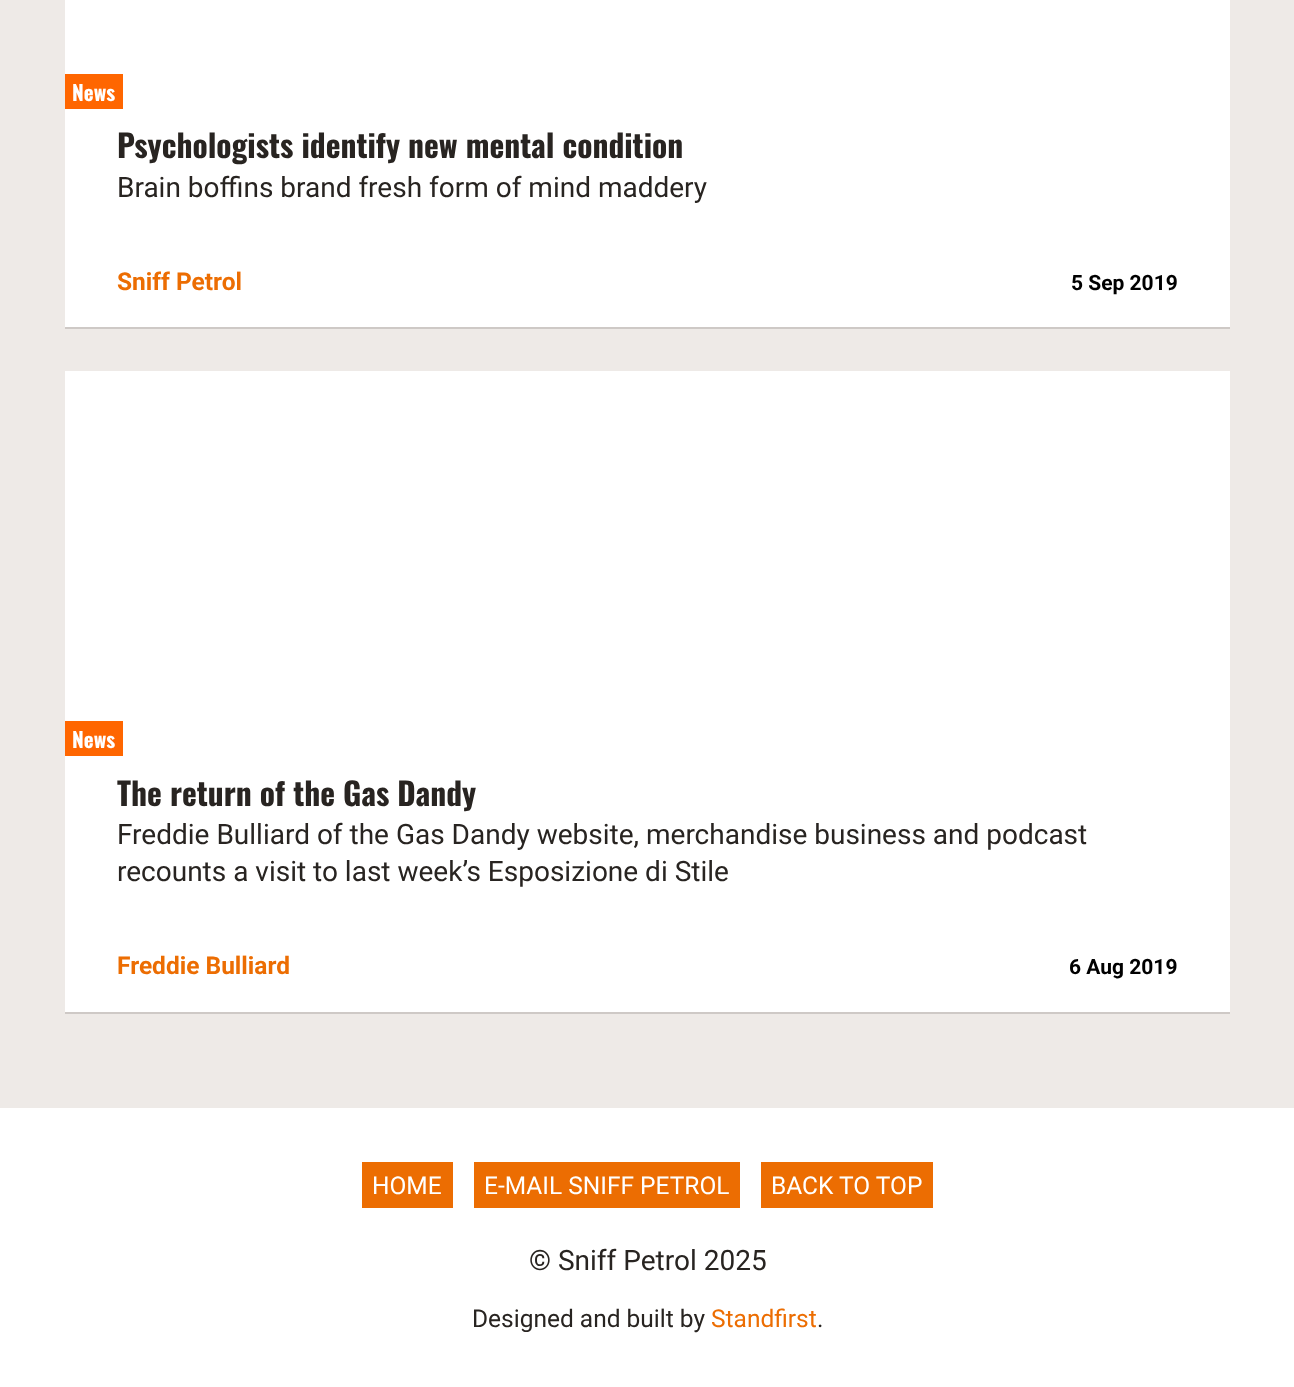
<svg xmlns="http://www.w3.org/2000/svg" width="1294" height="1387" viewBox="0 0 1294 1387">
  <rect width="100%" height="100%" fill="#eeeae7"/>
  <rect x="65" y="0" width="1165" height="327" fill="#ffffff"/>
  <rect x="65" y="327" width="1165" height="2" fill="#cec9c6"/>
  <rect x="65" y="74" width="58" height="35" fill="#ff6600"/>
  <text x="72" y="101" font-family="Oswald" font-size="21" font-weight="bold" fill="#ffffff">News</text>
  <text x="117" y="158" font-family="Oswald" font-size="31.5" font-weight="bold" fill="#282421">Psychologists identify new mental condition</text>
  <text x="117" y="197" font-family="Roboto" font-size="28" fill="#282421">Brain boffins brand fresh form of mind maddery</text>
  <text x="117" y="290" font-family="Roboto" font-size="24.5" font-weight="bold" fill="#ec6d02">Sniff Petrol</text>
  <text x="1071" y="290" font-family="Roboto" font-size="21" font-weight="bold" fill="#000000">5 Sep 2019</text>
  <rect x="65" y="371" width="1165" height="641" fill="#ffffff"/>
  <rect x="65" y="1012" width="1165" height="2" fill="#cec9c6"/>
  <rect x="65" y="721" width="58" height="35" fill="#ff6600"/>
  <text x="72" y="748" font-family="Oswald" font-size="21" font-weight="bold" fill="#ffffff">News</text>
  <text x="117" y="806" font-family="Oswald" font-size="31.5" font-weight="bold" fill="#282421">The return of the Gas Dandy</text>
  <text x="117" y="844" font-family="Roboto" font-size="28" fill="#282421">Freddie Bulliard of the Gas Dandy website, merchandise business and podcast</text>
  <text x="117" y="881" font-family="Roboto" font-size="28" fill="#282421">recounts a visit to last week’s Esposizione di Stile</text>
  <text x="117" y="974" font-family="Roboto" font-size="24.5" font-weight="bold" fill="#ec6d02">Freddie Bulliard</text>
  <text x="1069" y="974" font-family="Roboto" font-size="21" font-weight="bold" fill="#000000">6 Aug 2019</text>
  <rect x="0" y="1108" width="1294" height="279" fill="#ffffff"/>
  <rect x="362" y="1162" width="91" height="46" fill="#ec6d02"/>
  <text x="372" y="1194" font-family="Roboto" font-size="24.5" fill="#ffffff">HOME</text>
  <rect x="474" y="1162" width="266" height="46" fill="#ec6d02"/>
  <text x="484" y="1194" font-family="Roboto" font-size="24.5" fill="#ffffff">E-MAIL SNIFF PETROL</text>
  <rect x="761" y="1162" width="172" height="46" fill="#ec6d02"/>
  <text x="771" y="1194" font-family="Roboto" font-size="24.5" fill="#ffffff">BACK TO TOP</text>
  <text x="529" y="1270" font-family="Roboto" font-size="28" fill="#282421">© Sniff Petrol 2025</text>
  <text x="472" y="1327" font-family="Roboto" font-size="24.5" fill="#282421">Designed and built by</text>
  <text x="711" y="1327" font-family="Roboto" font-size="24.5" fill="#ec6d02">Standfirst</text>
  <text x="817" y="1327" font-family="Roboto" font-size="24.5" fill="#282421">.</text>
</svg>
